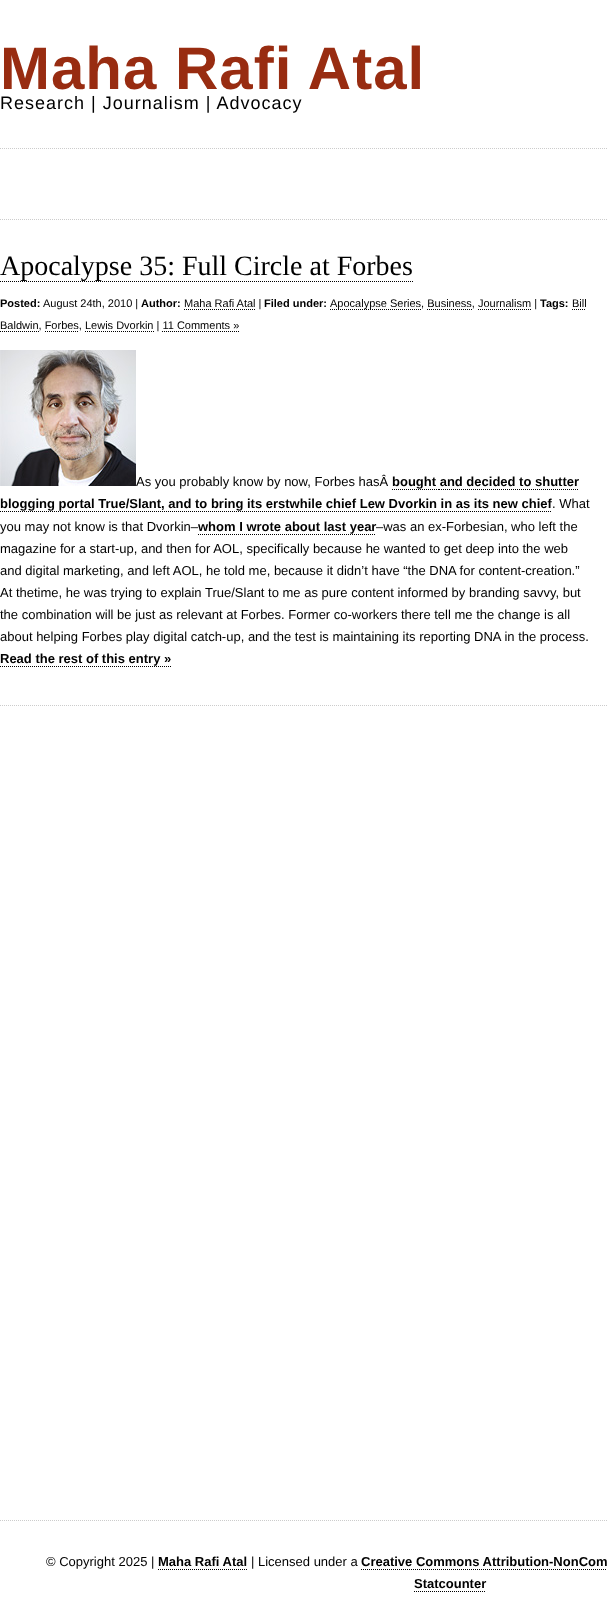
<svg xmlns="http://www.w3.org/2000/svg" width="607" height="1616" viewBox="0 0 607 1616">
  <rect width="100%" height="100%" fill="#ffffff"/>
  <path d="M0 148.5H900" fill="none" stroke="#cccccc" stroke-dasharray="1 1"/>
  <text x="0" y="89" font-family="Liberation Sans" font-size="60" font-weight="bold" letter-spacing="1" fill="#982c11">Maha Rafi Atal</text>
  <text x="0" y="109" font-family="Liberation Sans" font-size="18" letter-spacing="1" fill="#000000">Research | Journalism | Advocacy</text>
  <path d="M0 219.5H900" fill="none" stroke="#cccccc" stroke-dasharray="1 1"/>
  <path d="M0 281.5H413" fill="none" stroke="#000000" stroke-dasharray="1 1"/>
  <text x="0" y="275" font-family="Liberation Serif" font-size="28" fill="#000000">Apocalypse 35: Full Circle at Forbes</text>
  <text x="0" y="307" font-family="Liberation Sans" font-size="11" font-weight="bold" fill="#000000">Posted:</text>
  <text x="43" y="307" font-family="Liberation Sans" font-size="11" fill="#000000">August 24th, 2010 |</text>
  <text x="141" y="307" font-family="Liberation Sans" font-size="11" font-weight="bold" fill="#000000">Author:</text>
  <path d="M184 309.5H255" fill="none" stroke="#000000" stroke-dasharray="1 1"/>
  <text x="184" y="307" font-family="Liberation Sans" font-size="11" fill="#000000">Maha Rafi Atal |</text>
  <text x="264" y="307" font-family="Liberation Sans" font-size="11" font-weight="bold" fill="#000000">Filed under:</text>
  <path d="M330 309.5H421" fill="none" stroke="#000000" stroke-dasharray="1 1"/>
  <text x="330" y="307" font-family="Liberation Sans" font-size="11" fill="#000000">Apocalypse Series, Business, Journalism |</text>
  <path d="M427 309.5H472" fill="none" stroke="#000000" stroke-dasharray="1 1"/>
  <path d="M478 309.5H531" fill="none" stroke="#000000" stroke-dasharray="1 1"/>
  <text x="540" y="307" font-family="Liberation Sans" font-size="11" font-weight="bold" fill="#000000">Tags:</text>
  <text x="572" y="307" font-family="Liberation Sans" font-size="11" fill="#000000">Bill</text>
  <path d="M572 309.5H586" fill="none" stroke="#000000" stroke-dasharray="1 1"/>
  <path d="M0 331.5H39" fill="none" stroke="#000000" stroke-dasharray="1 1"/>
  <text x="0" y="329" font-family="Liberation Sans" font-size="11" fill="#000000">Baldwin, Forbes, Lewis Dvorkin | 11 Comments »</text>
  <path d="M45 331.5H79" fill="none" stroke="#000000" stroke-dasharray="1 1"/>
  <path d="M85 331.5H154" fill="none" stroke="#000000" stroke-dasharray="1 1"/>
  <path d="M162 331.5H239" fill="none" stroke="#000000" stroke-dasharray="1 1"/>
  <image x="0" y="350" width="136" height="136" href="img1.png"/>
  <text x="136" y="486" font-family="Liberation Sans" font-size="13" fill="#000000">As you probably know by now, Forbes hasÂ</text>
  <text x="392" y="486" font-family="Liberation Sans" font-size="13" font-weight="bold" fill="#000000">bought and decided to shutter</text>
  <path d="M392 489.5H439" fill="none" stroke="#000000" stroke-dasharray="1 1"/>
  <text x="0" y="508" font-family="Liberation Sans" font-size="13" font-weight="bold" fill="#000000">blogging portal True/Slant, and to bring its erstwhile chief Lew Dvorkin in as its new chief</text>
  <path d="M439 489.5H579" fill="none" stroke="#000000" stroke-dasharray="1 1"/>
  <path d="M0 511.5H552" fill="none" stroke="#000000" stroke-dasharray="1 1"/>
  <text x="552" y="508" font-family="Liberation Sans" font-size="13" fill="#000000">. What</text>
  <text x="0" y="531" font-family="Liberation Sans" font-size="13" fill="#000000">you may not know is that Dvorkin–</text>
  <text x="198" y="531" font-family="Liberation Sans" font-size="13" font-weight="bold" fill="#000000">whom I wrote about last year</text>
  <path d="M198 534.5H376" fill="none" stroke="#000000" stroke-dasharray="1 1"/>
  <text x="376" y="531" font-family="Liberation Sans" font-size="13" fill="#000000">–was an ex-Forbesian, who left the</text>
  <text x="0" y="553" font-family="Liberation Sans" font-size="13" fill="#000000">magazine for a start-up, and then for AOL, specifically because he wanted to get deep into the web</text>
  <text x="0" y="575" font-family="Liberation Sans" font-size="13" fill="#000000">and digital marketing, and left AOL, he told me, because it didn’t have “the DNA for content-creation.”</text>
  <text x="0" y="597" font-family="Liberation Sans" font-size="13" fill="#000000">At thetime, he was trying to explain True/Slant to me as pure content informed by branding savvy, but</text>
  <text x="0" y="619" font-family="Liberation Sans" font-size="13" fill="#000000">the combination will be just as relevant at Forbes. Former co-workers there tell me the change is all</text>
  <text x="0" y="641" font-family="Liberation Sans" font-size="13" fill="#000000">about helping Forbes play digital catch-up, and the test is maintaining its reporting DNA in the process.</text>
  <text x="0" y="663" font-family="Liberation Sans" font-size="13" font-weight="bold" fill="#000000">Read the rest of this entry »</text>
  <path d="M0 666.5H171" fill="none" stroke="#000000" stroke-dasharray="1 1"/>
  <path d="M0 705.5H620" fill="none" stroke="#cccccc" stroke-dasharray="1 1"/>
  <path d="M0 1520.5H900" fill="none" stroke="#cccccc" stroke-dasharray="1 1"/>
  <text x="46" y="1566" font-family="Liberation Sans" font-size="13" fill="#000000">© Copyright 2025 |</text>
  <text x="158" y="1566" font-family="Liberation Sans" font-size="13" font-weight="bold" fill="#000000">Maha Rafi Atal</text>
  <path d="M158 1569.5H247" fill="none" stroke="#000000" stroke-dasharray="1 1"/>
  <text x="251" y="1566" font-family="Liberation Sans" font-size="13" fill="#000000">| Licensed under a</text>
  <text x="361" y="1566" font-family="Liberation Sans" font-size="13" font-weight="bold" fill="#000000">Creative Commons Attribution-NonCom</text>
  <path d="M361 1569.5H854" fill="none" stroke="#000000" stroke-dasharray="1 1"/>
  <text x="414" y="1588" font-family="Liberation Sans" font-size="13" font-weight="bold" fill="#000000">Statcounter</text>
  <path d="M414 1591.5H486" fill="none" stroke="#000000" stroke-dasharray="1 1"/>
</svg>
